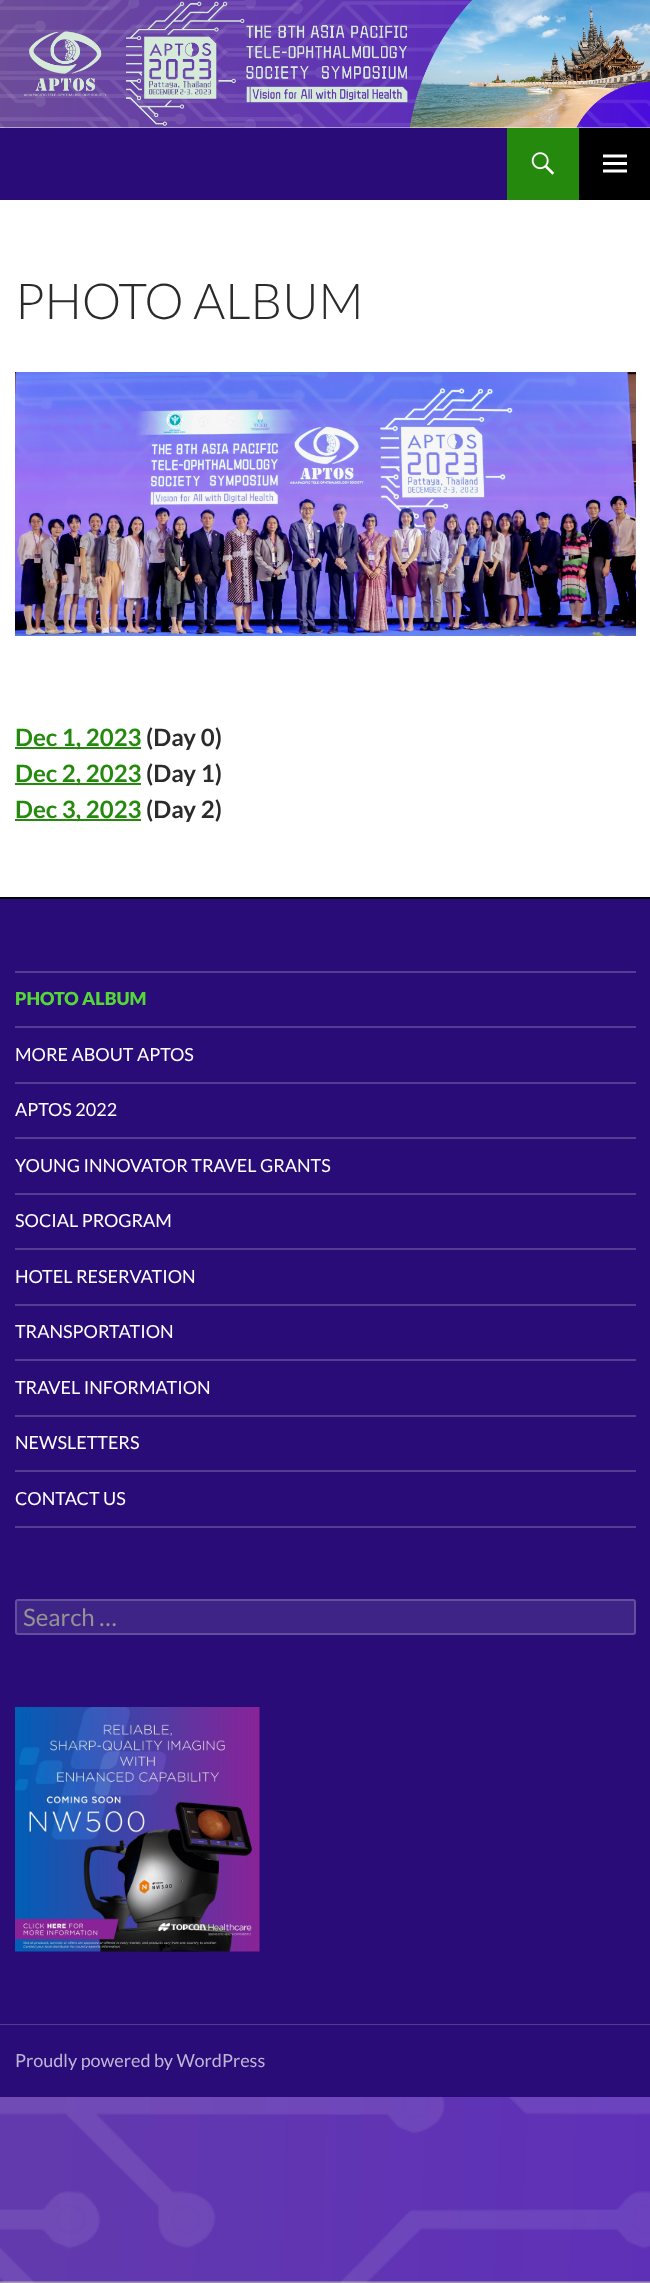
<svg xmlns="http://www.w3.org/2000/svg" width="650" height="2283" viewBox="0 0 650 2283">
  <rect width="100%" height="100%" fill="#ffffff"/>
  <image x="0" y="2097" width="650" height="186" href="img1.png"/>
  <image x="0" y="0" width="650" height="128" href="img2.png"/>
  <rect x="0" y="128" width="507" height="72" fill="#290c78"/>
  <rect x="507" y="128" width="72" height="72" fill="#24890d"/>
  <image x="531" y="152" width="24" height="23" href="img3.png"/>
  <rect x="579" y="128" width="71" height="72" fill="#000000"/>
  <image x="603" y="154" width="24" height="19" href="img4.png"/>
  <text x="15" y="319" font-family="Lato" font-size="49.5" font-weight="300" fill="#2b2b2b">PHOTO ALBUM</text>
  <image x="15" y="372" width="621" height="264" href="img5.png"/>
  <rect x="15" y="747" width="126" height="2" fill="#24890d"/>
  <text x="15" y="746" font-family="Lato" font-size="24" font-weight="bold" fill="#24890d">Dec 1, 2023</text>
  <text x="146" y="746" font-family="Lato" font-size="24" font-weight="bold" fill="#2b2b2b">(Day 0)</text>
  <rect x="15" y="783" width="126" height="2" fill="#24890d"/>
  <text x="15" y="782" font-family="Lato" font-size="24" font-weight="bold" fill="#24890d">Dec 2, 2023</text>
  <text x="146" y="782" font-family="Lato" font-size="24" font-weight="bold" fill="#2b2b2b">(Day 1)</text>
  <rect x="15" y="819" width="126" height="2" fill="#24890d"/>
  <text x="15" y="818" font-family="Lato" font-size="24" font-weight="bold" fill="#24890d">Dec 3, 2023</text>
  <text x="146" y="818" font-family="Lato" font-size="24" font-weight="bold" fill="#2b2b2b">(Day 2)</text>
  <rect x="0" y="899" width="650" height="1198" fill="#290c78"/>
  <rect x="0" y="897" width="650" height="2" fill="#000000"/>
  <rect x="0" y="2024" width="650" height="1" fill="#ffffff" fill-opacity="0.2"/>
  <rect x="15" y="1526" width="621" height="2" fill="#543d93"/>
  <rect x="15" y="971" width="621" height="2" fill="#543d93"/>
  <text x="15" y="1005" font-family="Lato" font-size="18" font-weight="900" fill="#55d737">PHOTO ALBUM</text>
  <rect x="15" y="1026" width="621" height="2" fill="#543d93"/>
  <text x="15" y="1061" font-family="Lato" font-size="18" fill="#ffffff">MORE ABOUT APTOS</text>
  <rect x="15" y="1082" width="621" height="2" fill="#543d93"/>
  <text x="15" y="1116" font-family="Lato" font-size="18" fill="#ffffff">APTOS 2022</text>
  <rect x="15" y="1137" width="621" height="2" fill="#543d93"/>
  <text x="15" y="1172" font-family="Lato" font-size="18" fill="#ffffff">YOUNG INNOVATOR TRAVEL GRANTS</text>
  <rect x="15" y="1193" width="621" height="2" fill="#543d93"/>
  <text x="15" y="1227" font-family="Lato" font-size="18" fill="#ffffff">SOCIAL PROGRAM</text>
  <rect x="15" y="1248" width="621" height="2" fill="#543d93"/>
  <text x="15" y="1283" font-family="Lato" font-size="18" fill="#ffffff">HOTEL RESERVATION</text>
  <rect x="15" y="1304" width="621" height="2" fill="#543d93"/>
  <text x="15" y="1338" font-family="Lato" font-size="18" fill="#ffffff">TRANSPORTATION</text>
  <rect x="15" y="1359" width="621" height="2" fill="#543d93"/>
  <text x="15" y="1394" font-family="Lato" font-size="18" fill="#ffffff">TRAVEL INFORMATION</text>
  <rect x="15" y="1415" width="621" height="2" fill="#543d93"/>
  <text x="15" y="1449" font-family="Lato" font-size="18" fill="#ffffff">NEWSLETTERS</text>
  <rect x="15" y="1470" width="621" height="2" fill="#543d93"/>
  <text x="15" y="1505" font-family="Lato" font-size="18" fill="#ffffff">CONTACT US</text>
  <rect x="15" y="1599" width="621" height="36" rx="3" fill="#3e2486"/>
  <rect x="16" y="1600" width="619" height="34" rx="2" fill="none" stroke="#ffffff" stroke-opacity="0.2" stroke-width="2"/>
  <text x="23" y="1626" font-family="Lato" font-size="24" fill="#939393">Search …</text>
  <image x="15" y="1707" width="245" height="245" href="img6.png"/>
  <text x="15" y="2067" font-family="Lato" font-size="18" fill="#bfb6d7">Proudly powered by WordPress</text>
</svg>
